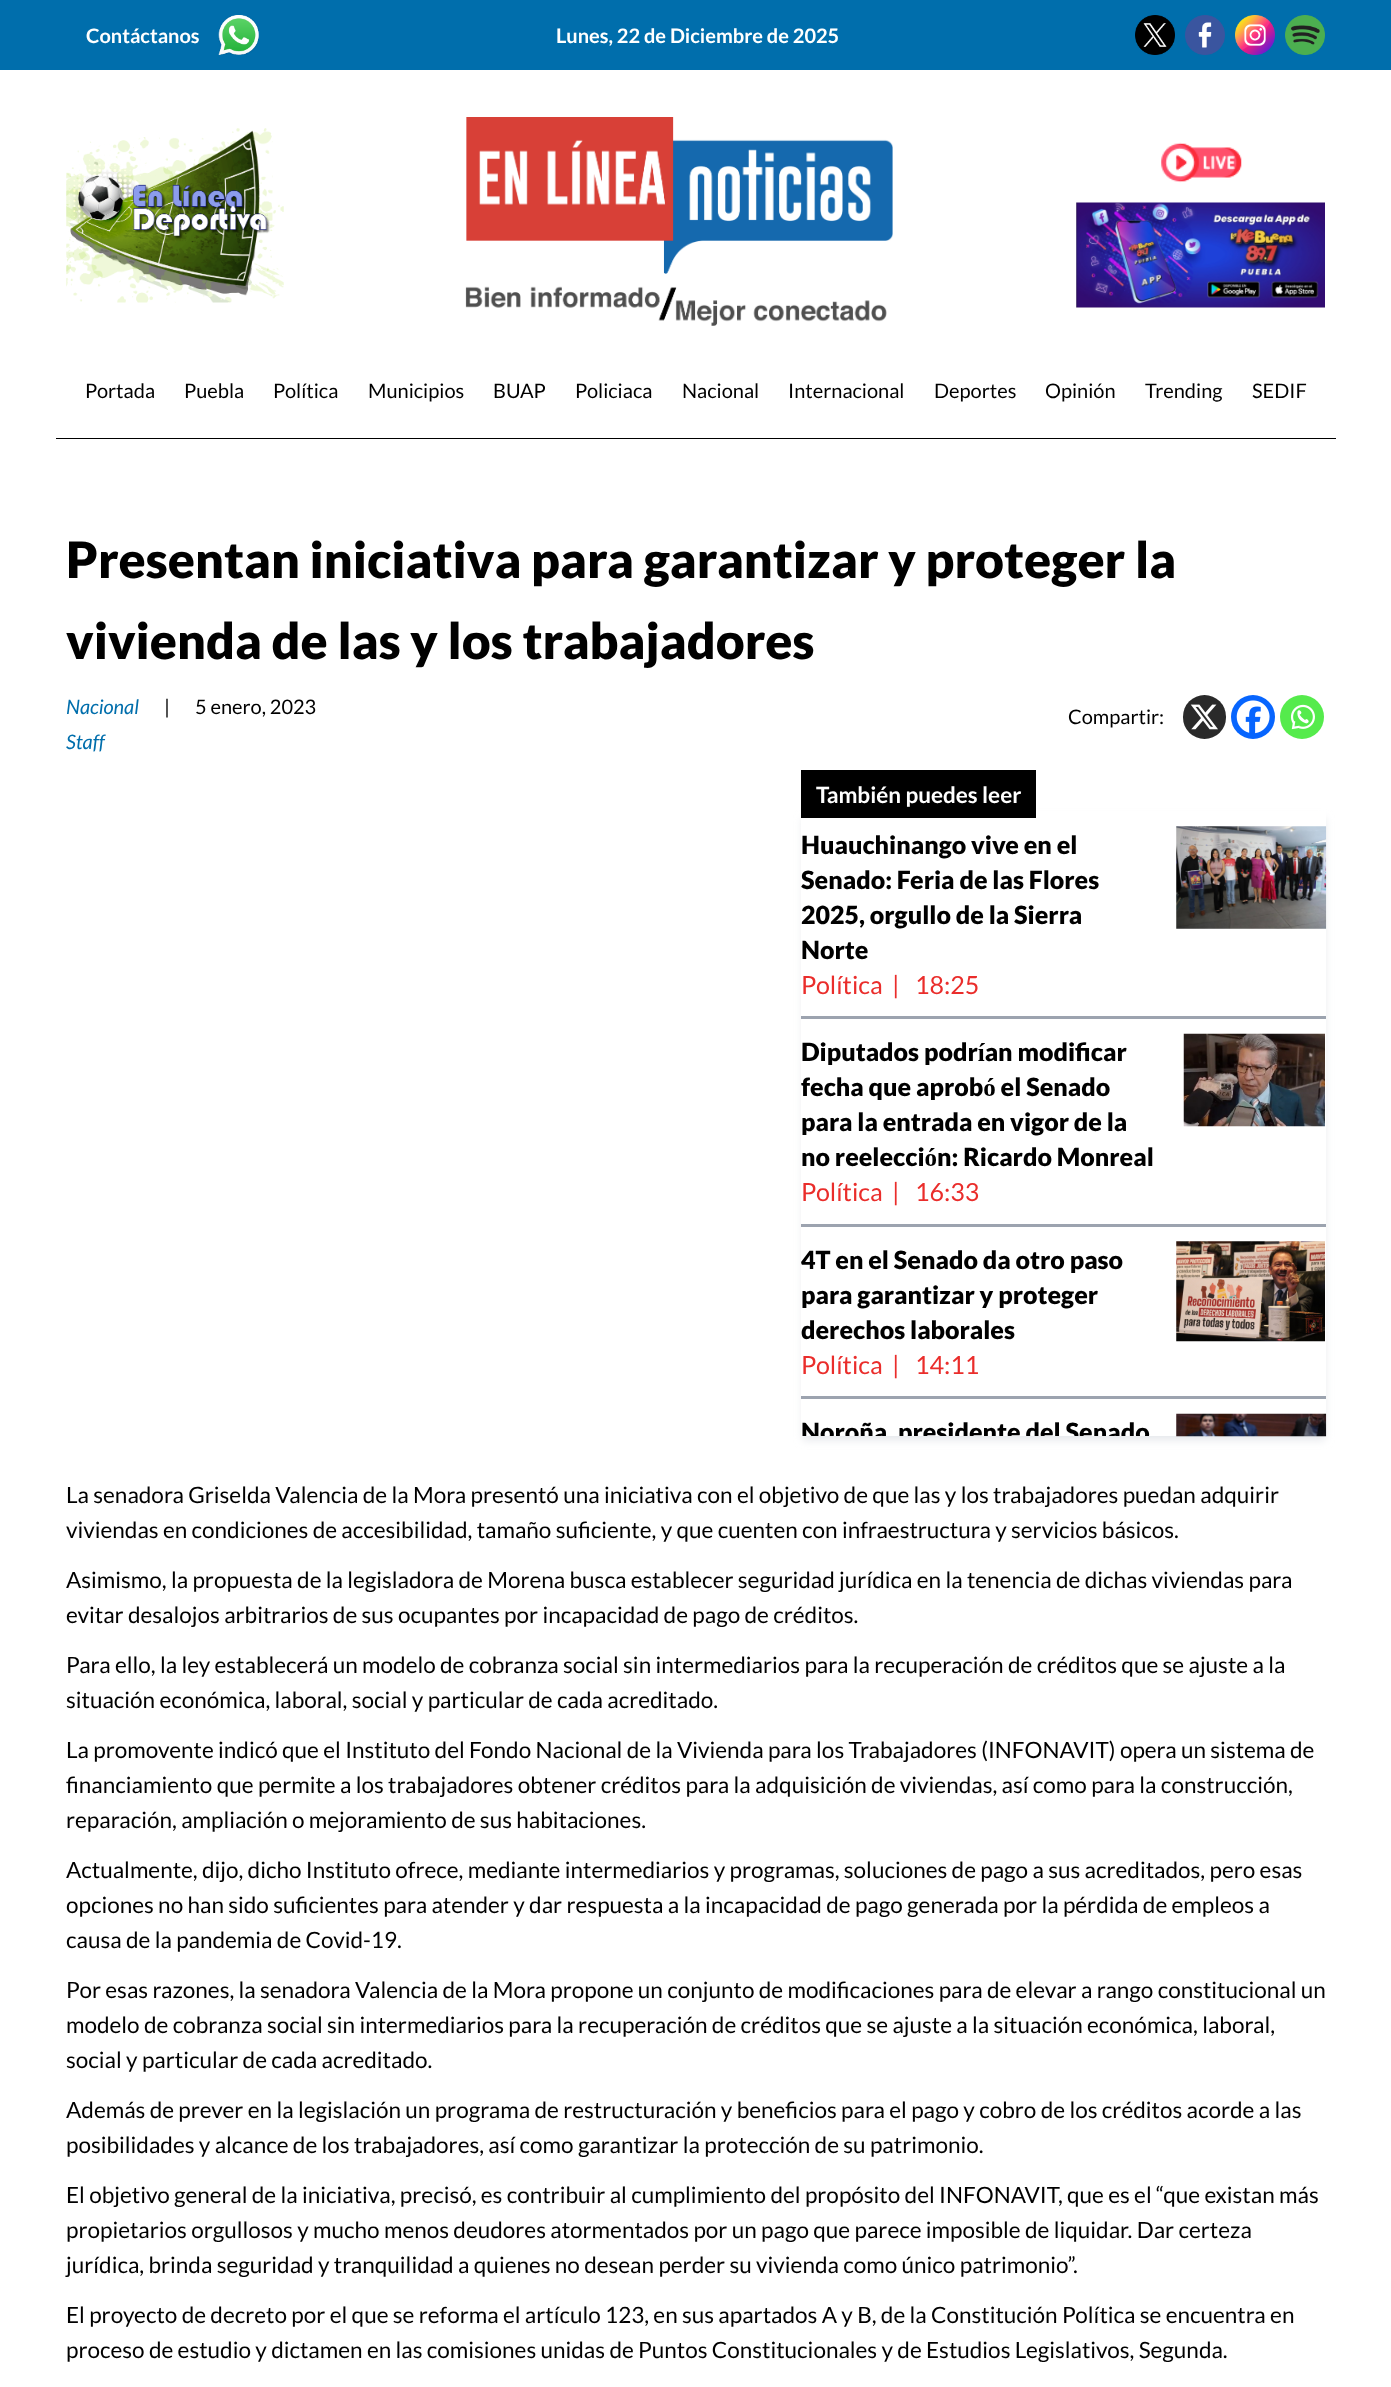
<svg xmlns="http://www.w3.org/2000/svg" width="1391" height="2387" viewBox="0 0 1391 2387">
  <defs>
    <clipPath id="clip1"><path d="M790 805H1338V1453H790ZM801 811H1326V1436H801Z" clip-rule="evenodd"/></clipPath>
    <filter id="blur1" x="-50%" y="-200%" width="200%" height="500%"><feGaussianBlur stdDeviation="4"/></filter>
    <clipPath id="clip2"><rect x="801" y="811" width="525" height="625"/></clipPath>
  </defs>
  <rect width="100%" height="100%" fill="#ffffff"/>
  <rect x="0" y="0" width="1391" height="70" fill="#006eac"/>
  <text x="86" y="43" font-family="Lato" font-size="20" font-weight="bold" fill="#ffffff">Contáctanos</text>
  <image x="218" y="15" width="41" height="40" href="img1.png"/>
  <text x="556" y="43" font-family="Lato" font-size="20" font-weight="bold" fill="#ffffff">Lunes, 22 de Diciembre de 2025</text>
  <image x="1135" y="15" width="40" height="40" href="img2.png"/>
  <image x="1185" y="15" width="40" height="40" href="img3.png"/>
  <image x="1235" y="15" width="40" height="40" href="img4.png"/>
  <image x="1285" y="15" width="40" height="40" href="img5.png"/>
  <image x="66" y="128" width="218" height="175" href="img6.png"/>
  <image x="465" y="117" width="428" height="209" href="img7.png"/>
  <image x="1161" y="142" width="81" height="41" href="img8.png"/>
  <image x="1076" y="202" width="249" height="106" href="img9.png"/>
  <rect x="56" y="438" width="1280" height="1" fill="#000000"/>
  <text x="85" y="398" font-family="Lato" font-size="20" fill="#000000">Portada</text>
  <text x="184" y="398" font-family="Lato" font-size="20" fill="#000000">Puebla</text>
  <text x="273" y="398" font-family="Lato" font-size="20" fill="#000000">Política</text>
  <text x="368" y="398" font-family="Lato" font-size="20" fill="#000000">Municipios</text>
  <text x="493" y="398" font-family="Lato" font-size="20" fill="#000000">BUAP</text>
  <text x="575" y="398" font-family="Lato" font-size="20" fill="#000000">Policiaca</text>
  <text x="682" y="398" font-family="Lato" font-size="20" fill="#000000">Nacional</text>
  <text x="788" y="398" font-family="Lato" font-size="20" fill="#000000">Internacional</text>
  <text x="934" y="398" font-family="Lato" font-size="20" fill="#000000">Deportes</text>
  <text x="1045" y="398" font-family="Lato" font-size="20" fill="#000000">Opinión</text>
  <text x="1145" y="398" font-family="Lato" font-size="20" fill="#000000">Trending</text>
  <text x="1252" y="398" font-family="Lato" font-size="20" fill="#000000">SEDIF</text>
  <text x="66" y="578" font-family="Lato" font-size="50" font-weight="900" fill="#000000">Presentan iniciativa para garantizar y proteger la</text>
  <text x="66" y="659" font-family="Lato" font-size="50" font-weight="900" fill="#000000">vivienda de las y los trabajadores</text>
  <text x="66" y="714" font-family="Lato" font-size="20" font-style="italic" fill="#006eac">Nacional</text>
  <text x="164" y="714" font-family="Lato" font-size="20" fill="#000000">|</text>
  <text x="195" y="714" font-family="Lato" font-size="20" fill="#000000">5 enero, 2023</text>
  <text x="66" y="749" font-family="Lato" font-size="20" font-style="italic" fill="#006eac">Staff</text>
  <text x="1068" y="724" font-family="Lato" font-size="20" fill="#000000">Compartir:</text>
  <rect x="1183" y="695" width="43" height="44" rx="21.5" fill="#2a2a2a"/>
  <image x="1190" y="704" width="28" height="26" href="img10.png"/>
  <circle cx="1253" cy="717" r="22" fill="#0765fe"/>
  <image x="1236" y="700" width="34" height="34" href="img11.png"/>
  <circle cx="1302" cy="717" r="22" fill="#55eb4c"/>
  <image x="1290" y="704" width="25" height="26" href="img12.png"/>
  <g clip-path="url(#clip1)">
    <rect x="803" y="818" width="522" height="622" fill="#e5e7eb" filter="url(#blur1)"/>
  </g>
  <rect x="801" y="770" width="235" height="48" fill="#000000"/>
  <text x="816" y="803" font-family="Lato" font-size="22.5" font-weight="bold" fill="#ffffff">También puedes leer</text>
  <rect x="801" y="1016" width="525" height="3" fill="#9ca3af"/>
  <text x="801" y="854" font-family="Lato" font-size="25" font-weight="900" fill="#000000">Huauchinango vive en el</text>
  <text x="801" y="889" font-family="Lato" font-size="25" font-weight="900" fill="#000000">Senado: Feria de las Flores</text>
  <text x="801" y="924" font-family="Lato" font-size="25" font-weight="900" fill="#000000">2025, orgullo de la Sierra</text>
  <text x="801" y="959" font-family="Lato" font-size="25" font-weight="900" fill="#000000">Norte</text>
  <text x="801" y="994" font-family="Lato" font-size="25" fill="#ea2d2b">Política</text>
  <text x="892" y="994" font-family="Lato" font-size="25" fill="#ea2d2b">|</text>
  <text x="915" y="994" font-family="Lato" font-size="25" fill="#ea2d2b">18:25</text>
  <image x="1176" y="826" width="151" height="103" href="img13.png"/>
  <rect x="801" y="1224" width="525" height="3" fill="#9ca3af"/>
  <text x="801" y="1061" font-family="Lato" font-size="25" font-weight="900" fill="#000000">Diputados podrían modificar</text>
  <text x="801" y="1096" font-family="Lato" font-size="25" font-weight="900" fill="#000000">fecha que aprobó el Senado</text>
  <text x="801" y="1131" font-family="Lato" font-size="25" font-weight="900" fill="#000000">para la entrada en vigor de la</text>
  <text x="801" y="1166" font-family="Lato" font-size="25" font-weight="900" fill="#000000">no reelección: Ricardo Monreal</text>
  <text x="801" y="1201" font-family="Lato" font-size="25" fill="#ea2d2b">Política</text>
  <text x="892" y="1201" font-family="Lato" font-size="25" fill="#ea2d2b">|</text>
  <text x="915" y="1201" font-family="Lato" font-size="25" fill="#ea2d2b">16:33</text>
  <image x="1183" y="1033" width="142" height="94" href="img14.png"/>
  <rect x="801" y="1396" width="525" height="3" fill="#9ca3af"/>
  <text x="801" y="1269" font-family="Lato" font-size="25" font-weight="900" fill="#000000">4T en el Senado da otro paso</text>
  <text x="801" y="1304" font-family="Lato" font-size="25" font-weight="900" fill="#000000">para garantizar y proteger</text>
  <text x="801" y="1339" font-family="Lato" font-size="25" font-weight="900" fill="#000000">derechos laborales</text>
  <text x="801" y="1374" font-family="Lato" font-size="25" fill="#ea2d2b">Política</text>
  <text x="892" y="1374" font-family="Lato" font-size="25" fill="#ea2d2b">|</text>
  <text x="915" y="1374" font-family="Lato" font-size="25" fill="#ea2d2b">14:11</text>
  <image x="1176" y="1241" width="149" height="101" href="img15.png"/>
  <g clip-path="url(#clip2)">
    <text x="801" y="1441" font-family="Lato" font-size="25" font-weight="900" fill="#000000">Noroña, presidente del Senado</text>
  </g>
  <image x="1176" y="1413" width="151" height="24" href="img16.png"/>
  <text x="66" y="1503" font-family="Lato" font-size="22.5" fill="#000000">La senadora Griselda Valencia de la Mora presentó una iniciativa con el objetivo de que las y los trabajadores puedan adquirir</text>
  <text x="66" y="1538" font-family="Lato" font-size="22.5" fill="#000000">viviendas en condiciones de accesibilidad, tamaño suficiente, y que cuenten con infraestructura y servicios básicos.</text>
  <text x="66" y="1588" font-family="Lato" font-size="22.5" fill="#000000">Asimismo, la propuesta de la legisladora de Morena busca establecer seguridad jurídica en la tenencia de dichas viviendas para</text>
  <text x="66" y="1623" font-family="Lato" font-size="22.5" fill="#000000">evitar desalojos arbitrarios de sus ocupantes por incapacidad de pago de créditos.</text>
  <text x="66" y="1673" font-family="Lato" font-size="22.5" fill="#000000">Para ello, la ley establecerá un modelo de cobranza social sin intermediarios para la recuperación de créditos que se ajuste a la</text>
  <text x="66" y="1708" font-family="Lato" font-size="22.5" fill="#000000">situación económica, laboral, social y particular de cada acreditado.</text>
  <text x="66" y="1758" font-family="Lato" font-size="22.5" fill="#000000">La promovente indicó que el Instituto del Fondo Nacional de la Vivienda para los Trabajadores (INFONAVIT) opera un sistema de</text>
  <text x="66" y="1793" font-family="Lato" font-size="22.5" fill="#000000">financiamiento que permite a los trabajadores obtener créditos para la adquisición de viviendas, así como para la construcción,</text>
  <text x="66" y="1828" font-family="Lato" font-size="22.5" fill="#000000">reparación, ampliación o mejoramiento de sus habitaciones.</text>
  <text x="66" y="1878" font-family="Lato" font-size="22.5" fill="#000000">Actualmente, dijo, dicho Instituto ofrece, mediante intermediarios y programas, soluciones de pago a sus acreditados, pero esas</text>
  <text x="66" y="1913" font-family="Lato" font-size="22.5" fill="#000000">opciones no han sido suficientes para atender y dar respuesta a la incapacidad de pago generada por la pérdida de empleos a</text>
  <text x="66" y="1948" font-family="Lato" font-size="22.5" fill="#000000">causa de la pandemia de Covid-19.</text>
  <text x="66" y="1998" font-family="Lato" font-size="22.5" fill="#000000">Por esas razones, la senadora Valencia de la Mora propone un conjunto de modificaciones para de elevar a rango constitucional un</text>
  <text x="66" y="2033" font-family="Lato" font-size="22.5" fill="#000000">modelo de cobranza social sin intermediarios para la recuperación de créditos que se ajuste a la situación económica, laboral,</text>
  <text x="66" y="2068" font-family="Lato" font-size="22.5" fill="#000000">social y particular de cada acreditado.</text>
  <text x="66" y="2118" font-family="Lato" font-size="22.5" fill="#000000">Además de prever en la legislación un programa de restructuración y beneficios para el pago y cobro de los créditos acorde a las</text>
  <text x="66" y="2153" font-family="Lato" font-size="22.5" fill="#000000">posibilidades y alcance de los trabajadores, así como garantizar la protección de su patrimonio.</text>
  <text x="66" y="2203" font-family="Lato" font-size="22.5" fill="#000000">El objetivo general de la iniciativa, precisó, es contribuir al cumplimiento del propósito del INFONAVIT, que es el “que existan más</text>
  <text x="66" y="2238" font-family="Lato" font-size="22.5" fill="#000000">propietarios orgullosos y mucho menos deudores atormentados por un pago que parece imposible de liquidar. Dar certeza</text>
  <text x="66" y="2273" font-family="Lato" font-size="22.5" fill="#000000">jurídica, brinda seguridad y tranquilidad a quienes no desean perder su vivienda como único patrimonio”.</text>
  <text x="66" y="2323" font-family="Lato" font-size="22.5" fill="#000000">El proyecto de decreto por el que se reforma el artículo 123, en sus apartados A y B, de la Constitución Política se encuentra en</text>
  <text x="66" y="2358" font-family="Lato" font-size="22.5" fill="#000000">proceso de estudio y dictamen en las comisiones unidas de Puntos Constitucionales y de Estudios Legislativos, Segunda.</text>
</svg>
